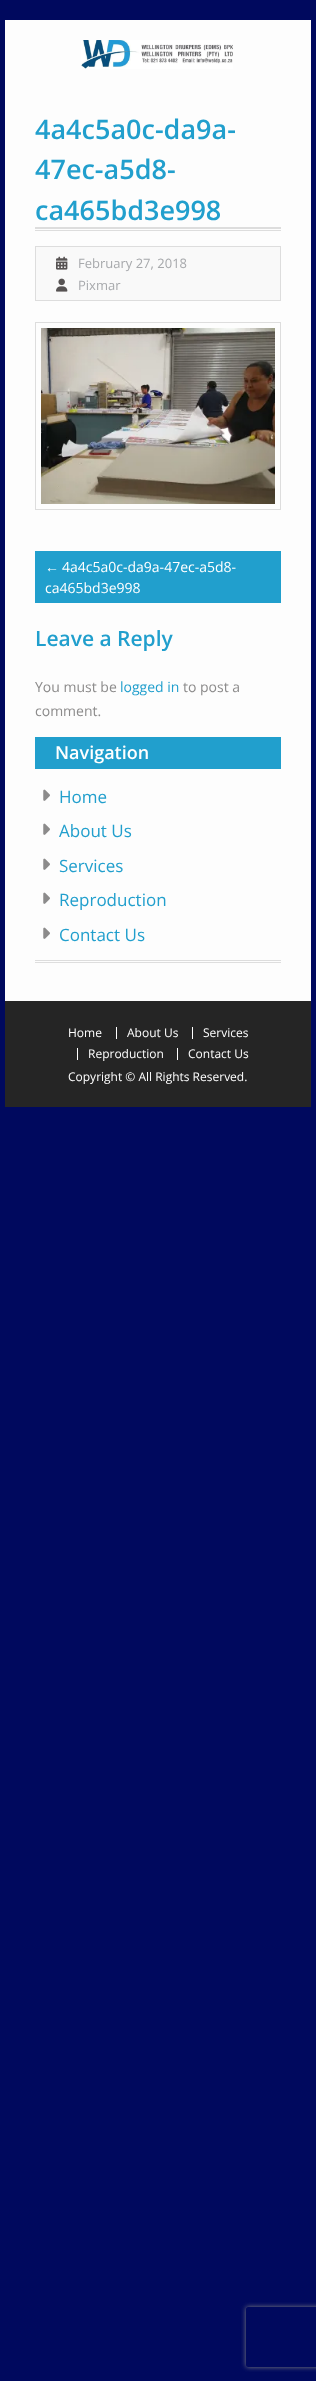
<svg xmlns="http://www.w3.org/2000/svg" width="316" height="2381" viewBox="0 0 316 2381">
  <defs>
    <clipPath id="clip1"><path d="M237 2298H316V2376H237ZM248 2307H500C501 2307 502 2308 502 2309V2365C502 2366 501 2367 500 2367H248C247 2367 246 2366 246 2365V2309C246 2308 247 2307 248 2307Z" clip-rule="evenodd"/></clipPath>
    <filter id="blur1" x="-50%" y="-200%" width="200%" height="500%"><feGaussianBlur stdDeviation="2.5"/></filter>
  </defs>
  <rect width="100%" height="100%" fill="#00095e"/>
  <rect x="5" y="20" width="306" height="981" fill="#fdfdfd"/>
  <image x="81" y="40" width="152" height="29" href="img1.png"/>
  <rect x="35" y="230" width="246" height="1" fill="#dddddd"/>
  <text x="35" y="139" font-family="Open Sans" font-size="27" font-weight="600" fill="#219fcd">4a4c5a0c-da9a-</text>
  <text x="35" y="179" font-family="Open Sans" font-size="27" font-weight="600" fill="#219fcd">47ec-a5d8-</text>
  <text x="35" y="220" font-family="Open Sans" font-size="27" font-weight="600" fill="#219fcd">ca465bd3e998</text>
  <rect x="35" y="227" width="246" height="2" fill="#dddddd"/>
  <rect x="35.5" y="246.5" width="245" height="54" fill="#f9f9f9" stroke="#dddddd"/>
  <image x="56" y="256" width="12" height="14" href="img2.png"/>
  <text x="78" y="268" font-family="Open Sans" font-size="13" fill="#a7a9ac">February 27, 2018</text>
  <image x="56" y="278" width="12" height="14" href="img3.png"/>
  <text x="78" y="290" font-family="Open Sans" font-size="13" fill="#a7a9ac">Pixmar</text>
  <rect x="35.5" y="322.5" width="245" height="187" fill="none" stroke="#dddddd"/>
  <image x="41" y="328" width="234" height="176" href="img4.png"/>
  <rect x="35" y="551" width="246" height="52" fill="#219fcd"/>
  <text x="45" y="572" font-family="Liberation Sans" font-size="14" fill="#ffffff">←</text>
  <text x="62" y="572" font-family="Open Sans" font-size="14" fill="#ffffff">4a4c5a0c-da9a-47ec-a5d8-</text>
  <text x="45" y="593" font-family="Open Sans" font-size="14" fill="#ffffff">ca465bd3e998</text>
  <text x="35" y="646" font-family="Open Sans" font-size="21" font-weight="600" fill="#219fcd">Leave a Reply</text>
  <text x="35" y="692" font-family="Open Sans" font-size="14" fill="#8c8b8b">You must be</text>
  <text x="120" y="692" font-family="Open Sans" font-size="14" fill="#219fcd">logged in</text>
  <text x="183" y="692" font-family="Open Sans" font-size="14" fill="#8c8b8b">to post a</text>
  <text x="35" y="716" font-family="Open Sans" font-size="14" fill="#8c8b8b">comment.</text>
  <rect x="35" y="737" width="246" height="32" fill="#219fcd"/>
  <text x="55" y="759" font-family="Open Sans" font-size="18" font-weight="600" fill="#ffffff">Navigation</text>
  <image x="43" y="789" width="7" height="12" href="img5.png"/>
  <text x="59" y="803" font-family="Open Sans" font-size="17" fill="#219fcd">Home</text>
  <image x="43" y="823" width="7" height="12" href="img5.png"/>
  <text x="59" y="837" font-family="Open Sans" font-size="17" fill="#219fcd">About Us</text>
  <image x="43" y="858" width="7" height="12" href="img5.png"/>
  <text x="59" y="872" font-family="Open Sans" font-size="17" fill="#219fcd">Services</text>
  <image x="43" y="892" width="7" height="12" href="img5.png"/>
  <text x="59" y="906" font-family="Open Sans" font-size="17" fill="#219fcd">Reproduction</text>
  <image x="43" y="927" width="7" height="12" href="img5.png"/>
  <text x="59" y="941" font-family="Open Sans" font-size="17" fill="#219fcd">Contact Us</text>
  <rect x="35" y="960" width="246" height="1" fill="#dddddd"/>
  <rect x="35" y="962" width="246" height="1" fill="#dedede"/>
  <rect x="5" y="1001" width="306" height="106" fill="#252525"/>
  <text x="68" y="1037" font-family="Open Sans" font-size="12" fill="#ffffff">Home</text>
  <rect x="116" y="1027" width="1" height="12" fill="#ffffff"/>
  <text x="127" y="1037" font-family="Open Sans" font-size="12" fill="#ffffff">About Us</text>
  <rect x="192" y="1027" width="1" height="12" fill="#ffffff"/>
  <text x="203" y="1037" font-family="Open Sans" font-size="12" fill="#ffffff">Services</text>
  <rect x="77" y="1048" width="1" height="12" fill="#ffffff"/>
  <text x="88" y="1058" font-family="Open Sans" font-size="12" fill="#ffffff">Reproduction</text>
  <rect x="177" y="1048" width="1" height="12" fill="#ffffff"/>
  <text x="188" y="1058" font-family="Open Sans" font-size="12" fill="#ffffff">Contact Us</text>
  <text x="68" y="1081" font-family="Open Sans" font-size="12" fill="#ffffff">Copyright © All Rights Reserved.</text>
  <g clip-path="url(#clip1)">
    <rect x="246" y="2307" width="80" height="60" rx="2" fill="#808080" filter="url(#blur1)"/>
  </g>
</svg>
